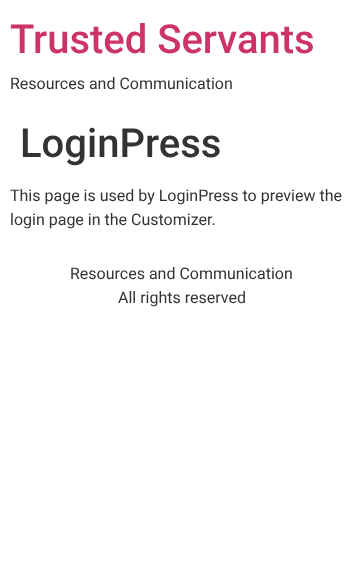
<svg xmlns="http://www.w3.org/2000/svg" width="363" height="585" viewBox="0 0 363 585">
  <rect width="100%" height="100%" fill="#ffffff"/>
  <text x="10" y="53" font-family="Roboto" font-size="40" font-weight="500" fill="#cc3366">Trusted Servants</text>
  <text x="10" y="89" font-family="Roboto" font-size="16" fill="#333333">Resources and Communication</text>
  <text x="20" y="157" font-family="Roboto" font-size="40" font-weight="500" fill="#333333">LoginPress</text>
  <text x="10" y="201" font-family="Roboto" font-size="16" fill="#333333">This page is used by LoginPress to preview the</text>
  <text x="10" y="225" font-family="Roboto" font-size="16" fill="#333333">login page in the Customizer.</text>
  <text x="70" y="279" font-family="Roboto" font-size="16" fill="#333333">Resources and Communication</text>
  <text x="118" y="303" font-family="Roboto" font-size="16" fill="#333333">All rights reserved</text>
</svg>
